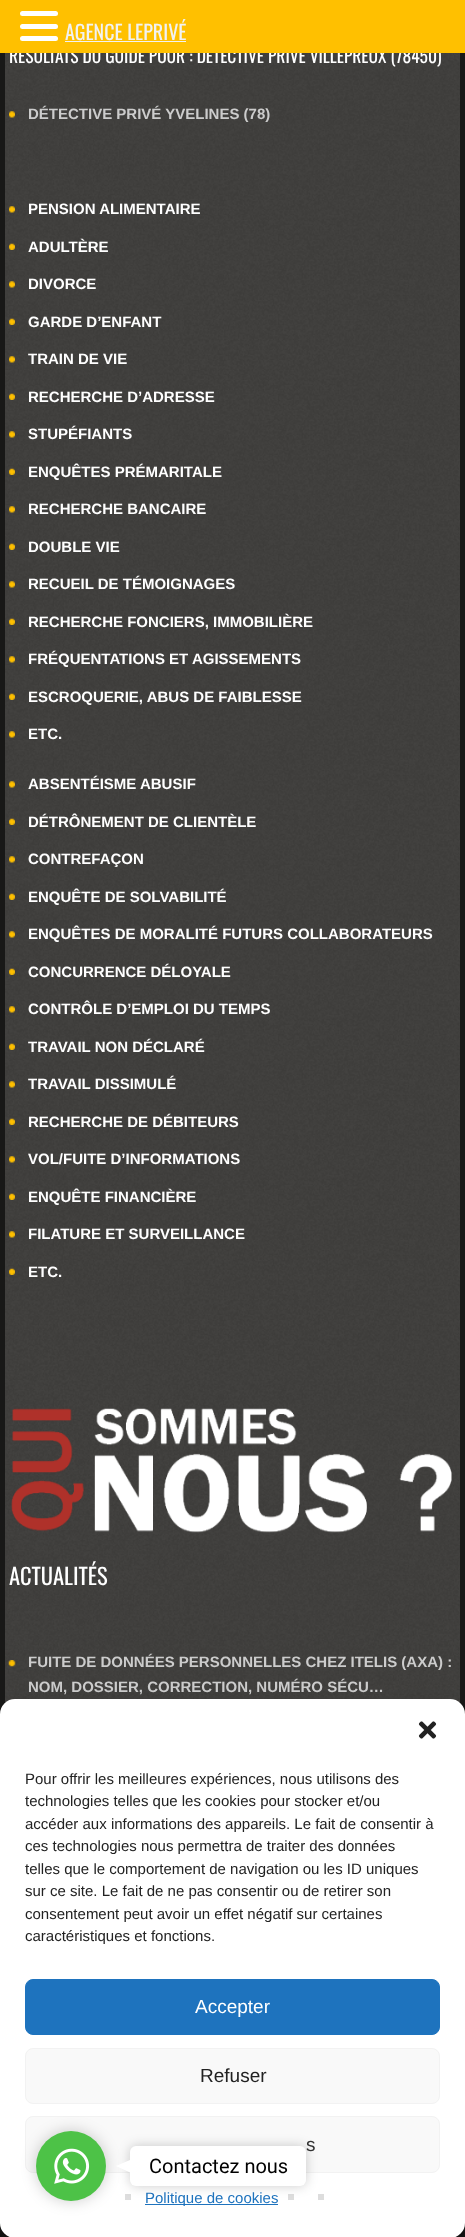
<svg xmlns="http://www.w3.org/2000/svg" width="465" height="2237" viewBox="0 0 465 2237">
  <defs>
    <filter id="blur1" x="-50%" y="-200%" width="200%" height="500%"><feGaussianBlur stdDeviation="4"/></filter>
    <filter id="blur2" x="-50%" y="-200%" width="200%" height="500%"><feGaussianBlur stdDeviation="12.5"/></filter>
    <filter id="blur3" x="-50%" y="-200%" width="200%" height="500%"><feGaussianBlur stdDeviation="3"/></filter>
    <filter id="blur4" x="-50%" y="-200%" width="200%" height="500%"><feGaussianBlur stdDeviation="7.5"/></filter>
    <filter id="blur5" x="-50%" y="-200%" width="200%" height="500%"><feGaussianBlur stdDeviation="6"/></filter>
  </defs>
  <rect width="100%" height="100%" fill="#181817"/>
  <image x="5" y="53" width="455" height="1650" href="img1.png"/>
  <text x="9" y="63" font-family="Oswald" font-size="17.5" fill="#ffffff">RÉSULTATS DU GUIDE POUR : DÉTECTIVE PRIVÉ VILLEPREUX (78450)</text>
  <rect x="0" y="0" width="465" height="53" fill="#ffc000"/>
  <rect x="20" y="11" width="38" height="5" rx="2.5" fill="#ffffff"/>
  <rect x="20" y="24" width="38" height="5" rx="2.5" fill="#ffffff"/>
  <rect x="20" y="36" width="38" height="5" rx="2.5" fill="#ffffff"/>
  <text x="65" y="40" font-family="Oswald" font-size="20" fill="#f2f2f2">AGENCE LEPRIVÉ</text>
  <rect x="65" y="41" width="121" height="1" fill="#f2f2f2"/>
  <image x="9" y="111" width="6" height="7" href="img2.png"/>
  <text x="28" y="119" font-family="Liberation Sans" font-size="15" font-weight="bold" fill="#cccccc">DÉTECTIVE PRIVÉ YVELINES (78)</text>
  <image x="9" y="206" width="6" height="7" href="img3.png"/>
  <text x="28" y="214" font-family="Liberation Sans" font-size="15" font-weight="bold" fill="#ffffff">PENSION ALIMENTAIRE</text>
  <image x="9" y="243" width="6" height="7" href="img4.png"/>
  <text x="28" y="252" font-family="Liberation Sans" font-size="15" font-weight="bold" fill="#ffffff">ADULTÈRE</text>
  <image x="9" y="281" width="6" height="7" href="img5.png"/>
  <text x="28" y="289" font-family="Liberation Sans" font-size="15" font-weight="bold" fill="#ffffff">DIVORCE</text>
  <image x="9" y="318" width="6" height="7" href="img6.png"/>
  <text x="28" y="327" font-family="Liberation Sans" font-size="15" font-weight="bold" fill="#ffffff">GARDE D’ENFANT</text>
  <image x="9" y="356" width="6" height="7" href="img7.png"/>
  <text x="28" y="364" font-family="Liberation Sans" font-size="15" font-weight="bold" fill="#ffffff">TRAIN DE VIE</text>
  <image x="9" y="393" width="6" height="7" href="img8.png"/>
  <text x="28" y="402" font-family="Liberation Sans" font-size="15" font-weight="bold" fill="#ffffff">RECHERCHE D’ADRESSE</text>
  <image x="9" y="431" width="6" height="7" href="img2.png"/>
  <text x="28" y="439" font-family="Liberation Sans" font-size="15" font-weight="bold" fill="#ffffff">STUPÉFIANTS</text>
  <image x="9" y="468" width="6" height="7" href="img9.png"/>
  <text x="28" y="477" font-family="Liberation Sans" font-size="15" font-weight="bold" fill="#ffffff">ENQUÊTES PRÉMARITALE</text>
  <image x="9" y="506" width="6" height="7" href="img10.png"/>
  <text x="28" y="514" font-family="Liberation Sans" font-size="15" font-weight="bold" fill="#ffffff">RECHERCHE BANCAIRE</text>
  <image x="9" y="543" width="6" height="7" href="img11.png"/>
  <text x="28" y="552" font-family="Liberation Sans" font-size="15" font-weight="bold" fill="#ffffff">DOUBLE VIE</text>
  <image x="9" y="581" width="6" height="7" href="img12.png"/>
  <text x="28" y="589" font-family="Liberation Sans" font-size="15" font-weight="bold" fill="#ffffff">RECUEIL DE TÉMOIGNAGES</text>
  <image x="9" y="618" width="6" height="7" href="img13.png"/>
  <text x="28" y="627" font-family="Liberation Sans" font-size="15" font-weight="bold" fill="#ffffff">RECHERCHE FONCIERS, IMMOBILIÈRE</text>
  <image x="9" y="656" width="6" height="7" href="img14.png"/>
  <text x="28" y="664" font-family="Liberation Sans" font-size="15" font-weight="bold" fill="#ffffff">FRÉQUENTATIONS ET AGISSEMENTS</text>
  <image x="9" y="693" width="6" height="7" href="img15.png"/>
  <text x="28" y="702" font-family="Liberation Sans" font-size="15" font-weight="bold" fill="#ffffff">ESCROQUERIE, ABUS DE FAIBLESSE</text>
  <image x="9" y="731" width="6" height="7" href="img16.png"/>
  <text x="28" y="739" font-family="Liberation Sans" font-size="15" font-weight="bold" fill="#ffffff">ETC.</text>
  <image x="9" y="781" width="6" height="7" href="img17.png"/>
  <text x="28" y="789" font-family="Liberation Sans" font-size="15" font-weight="bold" fill="#ffffff">ABSENTÉISME ABUSIF</text>
  <image x="9" y="818" width="6" height="7" href="img18.png"/>
  <text x="28" y="827" font-family="Liberation Sans" font-size="15" font-weight="bold" fill="#ffffff">DÉTRÔNEMENT DE CLIENTÈLE</text>
  <image x="9" y="856" width="6" height="7" href="img19.png"/>
  <text x="28" y="864" font-family="Liberation Sans" font-size="15" font-weight="bold" fill="#ffffff">CONTREFAÇON</text>
  <image x="9" y="893" width="6" height="7" href="img20.png"/>
  <text x="28" y="902" font-family="Liberation Sans" font-size="15" font-weight="bold" fill="#ffffff">ENQUÊTE DE SOLVABILITÉ</text>
  <image x="9" y="931" width="6" height="7" href="img21.png"/>
  <text x="28" y="939" font-family="Liberation Sans" font-size="15" font-weight="bold" fill="#ffffff">ENQUÊTES DE MORALITÉ FUTURS COLLABORATEURS</text>
  <image x="9" y="968" width="6" height="7" href="img22.png"/>
  <text x="28" y="977" font-family="Liberation Sans" font-size="15" font-weight="bold" fill="#ffffff">CONCURRENCE DÉLOYALE</text>
  <image x="9" y="1006" width="6" height="7" href="img3.png"/>
  <text x="28" y="1014" font-family="Liberation Sans" font-size="15" font-weight="bold" fill="#ffffff">CONTRÔLE D’EMPLOI DU TEMPS</text>
  <image x="9" y="1043" width="6" height="7" href="img4.png"/>
  <text x="28" y="1052" font-family="Liberation Sans" font-size="15" font-weight="bold" fill="#ffffff">TRAVAIL NON DÉCLARÉ</text>
  <image x="9" y="1081" width="6" height="7" href="img5.png"/>
  <text x="28" y="1089" font-family="Liberation Sans" font-size="15" font-weight="bold" fill="#ffffff">TRAVAIL DISSIMULÉ</text>
  <image x="9" y="1118" width="6" height="7" href="img6.png"/>
  <text x="28" y="1127" font-family="Liberation Sans" font-size="15" font-weight="bold" fill="#ffffff">RECHERCHE DE DÉBITEURS</text>
  <image x="9" y="1156" width="6" height="7" href="img7.png"/>
  <text x="28" y="1164" font-family="Liberation Sans" font-size="15" font-weight="bold" fill="#ffffff">VOL/FUITE D’INFORMATIONS</text>
  <image x="9" y="1193" width="6" height="7" href="img8.png"/>
  <text x="28" y="1202" font-family="Liberation Sans" font-size="15" font-weight="bold" fill="#ffffff">ENQUÊTE FINANCIÈRE</text>
  <image x="9" y="1231" width="6" height="7" href="img2.png"/>
  <text x="28" y="1239" font-family="Liberation Sans" font-size="15" font-weight="bold" fill="#ffffff">FILATURE ET SURVEILLANCE</text>
  <image x="9" y="1268" width="6" height="7" href="img9.png"/>
  <text x="28" y="1277" font-family="Liberation Sans" font-size="15" font-weight="bold" fill="#ffffff">ETC.</text>
  <image x="11" y="1408" width="441" height="125" href="img23.png"/>
  <text x="9" y="1585" font-family="Oswald" font-size="22.5" fill="#ffffff">ACTUALITÉS</text>
  <image x="8" y="1660" width="8" height="7" href="img24.png"/>
  <text x="28" y="1667" font-family="Liberation Sans" font-size="15" font-weight="bold" fill="#cccccc">FUITE DE DONNÉES PERSONNELLES CHEZ ITELIS (AXA) :</text>
  <text x="28" y="1692" font-family="Liberation Sans" font-size="15" font-weight="bold" fill="#cccccc">NOM, DOSSIER, CORRECTION, NUMÉRO SÉCU…</text>
  <rect x="9" y="2236" width="448" height="1" fill="#232221"/>
  <rect x="0" y="1706" width="465" height="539" rx="15" fill="#000000" fill-opacity="0.23" filter="url(#blur1)"/>
  <rect x="0" y="1711" width="465" height="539" rx="15" fill="#000000" fill-opacity="0.19" filter="url(#blur2)"/>
  <rect x="378" y="2145" width="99" height="75" rx="2.5" fill="#808080" filter="url(#blur3)"/>
  <rect x="0" y="1699" width="465" height="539" rx="15" fill="#ffffff"/>
  <image x="418" y="1721" width="19" height="18" href="img25.png"/>
  <text x="25" y="1784" font-family="Liberation Sans" font-size="15" fill="#222222">Pour offrir les meilleures expériences, nous utilisons des</text>
  <text x="25" y="1806" font-family="Liberation Sans" font-size="15" fill="#222222">technologies telles que les cookies pour stocker et/ou</text>
  <text x="25" y="1829" font-family="Liberation Sans" font-size="15" fill="#222222">accéder aux informations des appareils. Le fait de consentir à</text>
  <text x="25" y="1851" font-family="Liberation Sans" font-size="15" fill="#222222">ces technologies nous permettra de traiter des données</text>
  <text x="25" y="1874" font-family="Liberation Sans" font-size="15" fill="#222222">telles que le comportement de navigation ou les ID uniques</text>
  <text x="25" y="1896" font-family="Liberation Sans" font-size="15" fill="#222222">sur ce site. Le fait de ne pas consentir ou de retirer son</text>
  <text x="25" y="1919" font-family="Liberation Sans" font-size="15" fill="#222222">consentement peut avoir un effet négatif sur certaines</text>
  <text x="25" y="1941" font-family="Liberation Sans" font-size="15" fill="#222222">caractéristiques et fonctions.</text>
  <rect x="25.5" y="1979.5" width="414" height="55" rx="7.5" fill="#1e73be" stroke="#1e73be"/>
  <text x="195" y="2013" font-family="Liberation Sans" font-size="19" fill="#ffffff">Accepter</text>
  <rect x="25.5" y="2048.5" width="414" height="55" rx="7.5" fill="#f9f9f9" stroke="#f2f2f2"/>
  <text x="200" y="2082" font-family="Liberation Sans" font-size="19" fill="#222222">Refuser</text>
  <rect x="25.5" y="2116.5" width="414" height="56" rx="7.5" fill="#f9f9f9" stroke="#f2f2f2"/>
  <text x="306" y="2151" font-family="Liberation Sans" font-size="19" fill="#333333">s</text>
  <rect x="125" y="2194" width="6" height="6" fill="#dddddd"/>
  <rect x="145" y="2204" width="133" height="1" fill="#1e73be"/>
  <text x="145" y="2203" font-family="Liberation Sans" font-size="15" fill="#1e73be">Politique de cookies</text>
  <rect x="288" y="2194" width="6" height="6" fill="#dddddd"/>
  <rect x="318" y="2194" width="6" height="6" fill="#dddddd"/>
  <rect x="36" y="2131" width="70" height="70" rx="35" fill="#000000" fill-opacity="0.2" filter="url(#blur4)"/>
  <circle cx="71" cy="2166" r="35" fill="#4dc247"/>
  <image x="54" y="2148" width="36" height="36" href="img26.png"/>
  <rect x="130" y="2146" width="176" height="40" rx="6" fill="#000000" fill-opacity="0.2" filter="url(#blur5)"/>
  <rect x="130" y="2146" width="176" height="40" rx="6" fill="#ffffff"/>
  <path d="M130 2160V2172.5L116 2166Z" fill="#ffffff"/>
  <text x="149" y="2173" font-family="Roboto" font-size="20" fill="#000000">Contactez nous</text>
</svg>
